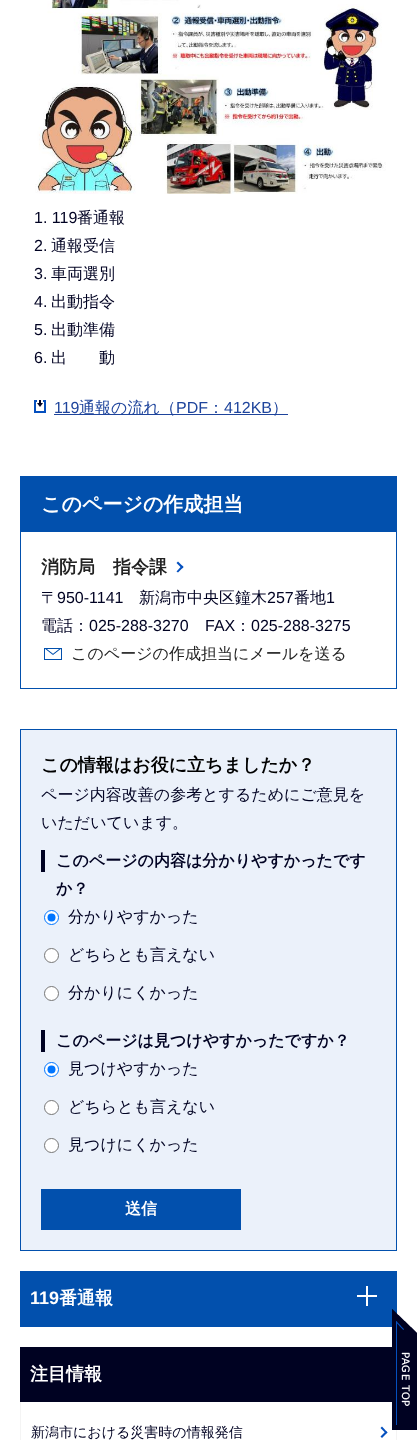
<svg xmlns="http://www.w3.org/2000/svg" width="417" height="1440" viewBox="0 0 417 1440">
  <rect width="100%" height="100%" fill="#ffffff"/>
  <image x="35" y="0" width="351" height="194" href="img1.png"/>
  <text x="34" y="223" font-family="Liberation Sans" font-size="16" fill="#000222">1. 119</text>
  <text x="77" y="223" font-family="WenQuanYi Zen Hei" font-size="16" font-weight="500" fill="#000222">番通報</text>
  <text x="34" y="251" font-family="Liberation Sans" font-size="16" fill="#000222">2.</text>
  <text x="51" y="251" font-family="WenQuanYi Zen Hei" font-size="16" font-weight="500" fill="#000222">通報受信</text>
  <text x="34" y="279" font-family="Liberation Sans" font-size="16" fill="#000222">3.</text>
  <text x="51" y="279" font-family="WenQuanYi Zen Hei" font-size="16" font-weight="500" fill="#000222">車両選別</text>
  <text x="34" y="307" font-family="Liberation Sans" font-size="16" fill="#000222">4.</text>
  <text x="51" y="307" font-family="WenQuanYi Zen Hei" font-size="16" font-weight="500" fill="#000222">出動指令</text>
  <text x="34" y="335" font-family="Liberation Sans" font-size="16" fill="#000222">5.</text>
  <text x="51" y="335" font-family="WenQuanYi Zen Hei" font-size="16" font-weight="500" fill="#000222">出動準備</text>
  <text x="34" y="363" font-family="Liberation Sans" font-size="16" fill="#000222">6.</text>
  <text x="51" y="363" font-family="WenQuanYi Zen Hei" font-size="16" font-weight="500" fill="#000222">出　　動</text>
  <image x="34" y="400" width="12" height="13" href="img2.png"/>
  <text x="54" y="413" font-family="Liberation Sans" font-size="16" fill="#1e449c">119</text>
  <rect x="54" y="414" width="234" height="1" fill="#1e449c"/>
  <text x="79" y="413" font-family="WenQuanYi Zen Hei" font-size="16" font-weight="500" fill="#1e449c">通報の流れ（</text>
  <text x="176" y="413" font-family="Liberation Sans" font-size="16" fill="#1e449c">PDF</text>
  <text x="208" y="413" font-family="WenQuanYi Zen Hei" font-size="16" font-weight="500" fill="#1e449c">：</text>
  <text x="224" y="413" font-family="Liberation Sans" font-size="16" fill="#1e449c">412KB</text>
  <text x="272" y="413" font-family="WenQuanYi Zen Hei" font-size="16" font-weight="500" fill="#1e449c">）</text>
  <rect x="20.5" y="476.5" width="376" height="212" fill="none" stroke="#0250ad"/>
  <rect x="21" y="477" width="375" height="55" fill="#0250ad"/>
  <text x="41" y="511" font-family="WenQuanYi Zen Hei" font-size="20" font-weight="bold" fill="#ffffff">このページの作成担当</text>
  <text x="41" y="573" font-family="WenQuanYi Zen Hei" font-size="18" font-weight="bold" fill="#222222">消防局　指令課</text>
  <path d="M178 561.5L183.5 567L182 568.5L176.5 563Z" fill="#0550bf"/>
  <path d="M182 565.5L183.5 567L178 572.5L176.5 571.5Z" fill="#0550bf"/>
  <text x="41" y="603" font-family="WenQuanYi Zen Hei" font-size="16" font-weight="500" fill="#000222">〒</text>
  <text x="57" y="603" font-family="Liberation Sans" font-size="16" fill="#000222">950-1141</text>
  <text x="139" y="603" font-family="WenQuanYi Zen Hei" font-size="16" font-weight="500" fill="#000222">新潟市中央区鐘木</text>
  <text x="267" y="603" font-family="Liberation Sans" font-size="16" fill="#000222">257</text>
  <text x="294" y="603" font-family="WenQuanYi Zen Hei" font-size="16" font-weight="500" fill="#000222">番地</text>
  <text x="326" y="603" font-family="Liberation Sans" font-size="16" fill="#000222">1</text>
  <text x="41" y="631" font-family="WenQuanYi Zen Hei" font-size="16" font-weight="500" fill="#000222">電話：</text>
  <text x="89" y="631" font-family="Liberation Sans" font-size="16" fill="#000222">025-288-3270</text>
  <text x="205" y="631" font-family="Liberation Sans" font-size="16" fill="#000222">FAX</text>
  <text x="235" y="631" font-family="WenQuanYi Zen Hei" font-size="16" font-weight="500" fill="#000222">：</text>
  <text x="251" y="631" font-family="Liberation Sans" font-size="16" fill="#000222">025-288-3275</text>
  <image x="44" y="648" width="18" height="12" href="img3.png"/>
  <text x="71" y="659" font-family="WenQuanYi Zen Hei" font-size="16" font-weight="500" fill="#222222">このページの作成担当にメールを送る</text>
  <rect x="20.5" y="729.5" width="376" height="521" fill="#ebf1fa" stroke="#0250ad"/>
  <text x="41" y="771" font-family="WenQuanYi Zen Hei" font-size="18" font-weight="bold" fill="#000000">この情報はお役に立ちましたか？</text>
  <text x="41" y="800" font-family="WenQuanYi Zen Hei" font-size="16" font-weight="500" fill="#000222">ページ内容改善の参考とするためにご意見を</text>
  <text x="41" y="828" font-family="WenQuanYi Zen Hei" font-size="16" font-weight="500" fill="#000222">いただいています。</text>
  <rect x="41" y="850" width="4" height="22" fill="#000222"/>
  <text x="56" y="866" font-family="WenQuanYi Zen Hei" font-size="16" font-weight="bold" fill="#000222">このページの内容は分かりやすかったです</text>
  <text x="56" y="894" font-family="WenQuanYi Zen Hei" font-size="16" font-weight="bold" fill="#000222">か？</text>
  <circle cx="51.5" cy="917.5" r="7" fill="#ffffff" stroke="#0075ff"/>
  <circle cx="51.5" cy="917.5" r="4" fill="#0075ff"/>
  <text x="68" y="922" font-family="WenQuanYi Zen Hei" font-size="16" font-weight="500" fill="#000222">分かりやすかった</text>
  <circle cx="51.5" cy="955.5" r="7" fill="#ffffff" stroke="#767676"/>
  <text x="68" y="960" font-family="WenQuanYi Zen Hei" font-size="16" font-weight="500" fill="#000222">どちらとも言えない</text>
  <circle cx="51.5" cy="993.5" r="7" fill="#ffffff" stroke="#767676"/>
  <text x="68" y="998" font-family="WenQuanYi Zen Hei" font-size="16" font-weight="500" fill="#000222">分かりにくかった</text>
  <rect x="41" y="1030" width="4" height="22" fill="#000222"/>
  <text x="56" y="1046" font-family="WenQuanYi Zen Hei" font-size="16" font-weight="bold" fill="#000222">このページは見つけやすかったですか？</text>
  <circle cx="51.5" cy="1069.5" r="7" fill="#ffffff" stroke="#0075ff"/>
  <circle cx="51.5" cy="1069.5" r="4" fill="#0075ff"/>
  <text x="68" y="1074" font-family="WenQuanYi Zen Hei" font-size="16" font-weight="500" fill="#000222">見つけやすかった</text>
  <circle cx="51.5" cy="1107.5" r="7" fill="#ffffff" stroke="#767676"/>
  <text x="68" y="1112" font-family="WenQuanYi Zen Hei" font-size="16" font-weight="500" fill="#000222">どちらとも言えない</text>
  <circle cx="51.5" cy="1145.5" r="7" fill="#ffffff" stroke="#767676"/>
  <text x="68" y="1150" font-family="WenQuanYi Zen Hei" font-size="16" font-weight="500" fill="#000222">見つけにくかった</text>
  <rect x="41" y="1189" width="200" height="41" fill="#0250ad"/>
  <text x="125" y="1214" font-family="WenQuanYi Zen Hei" font-size="16" font-weight="bold" fill="#ffffff">送信</text>
  <rect x="20" y="1271" width="377" height="56" fill="#0250ad"/>
  <text x="30" y="1304" font-family="Liberation Sans" font-size="18" font-weight="bold" fill="#ffffff">119</text>
  <text x="59" y="1304" font-family="WenQuanYi Zen Hei" font-size="18" font-weight="bold" fill="#ffffff">番通報</text>
  <image x="357" y="1286" width="20" height="20" href="img4.png"/>
  <rect x="20" y="1347" width="372" height="55" fill="#000222"/>
  <text x="30" y="1380" font-family="WenQuanYi Zen Hei" font-size="18" font-weight="bold" fill="#ffffff">注目情報</text>
  <rect x="396" y="1430" width="1" height="10" fill="#f4f4f4"/>
  <rect x="20" y="1402" width="1" height="38" fill="#f4f4f4"/>
  <text x="31" y="1437" font-family="WenQuanYi Zen Hei" font-size="14" font-weight="500" fill="#000222">新潟市における災害時の情報発信</text>
  <path d="M382 1426.5L387.5 1432.5L386 1433.5L380.5 1428Z" fill="#0550bf"/>
  <path d="M386 1431L387.5 1432.5L382 1438L380.5 1436.5Z" fill="#0550bf"/>
  <image x="392" y="1309" width="25" height="121" href="img5.png"/>
</svg>
